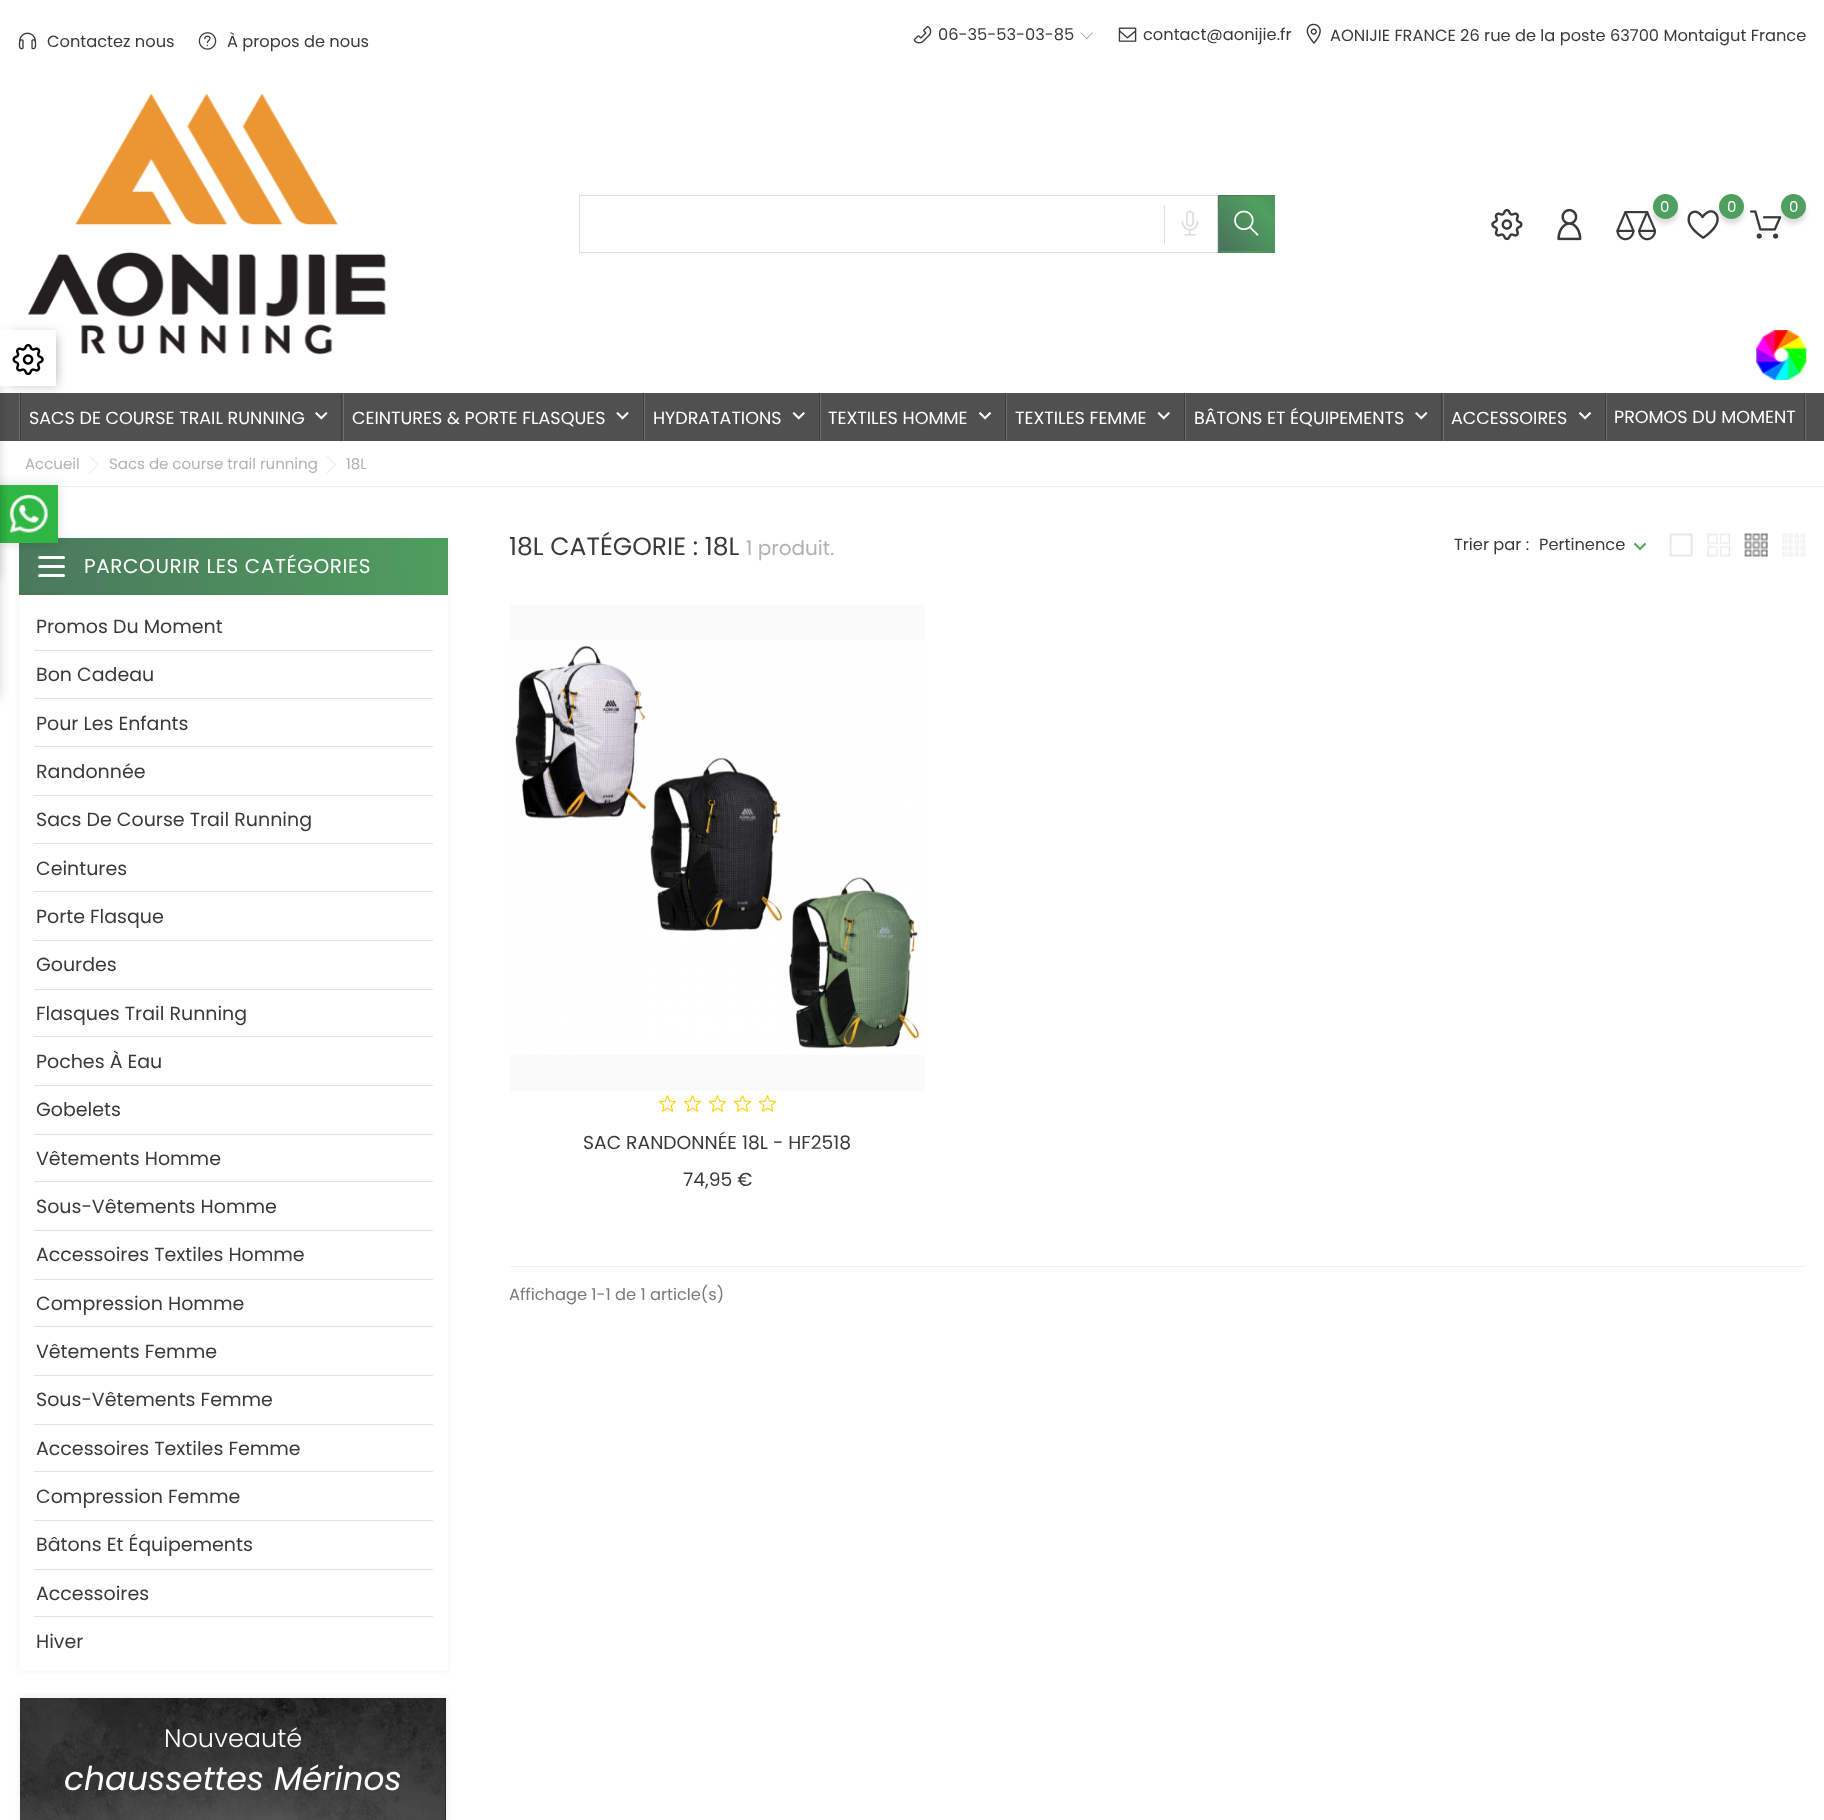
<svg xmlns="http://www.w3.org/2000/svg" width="1824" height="1820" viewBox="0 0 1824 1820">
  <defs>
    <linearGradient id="g1" gradientUnits="userSpaceOnUse" x1="1208" y1="129" x2="1120" y2="208"><stop offset="0" stop-color="#4a715d"/><stop offset="0.49" stop-color="#4fa05e"/><stop offset="1" stop-color="#4a715d"/></linearGradient>
    <linearGradient id="g2" gradientUnits="userSpaceOnUse" x1="1318" y1="129" x2="1230" y2="208"><stop offset="0" stop-color="#4a715d"/><stop offset="0.49" stop-color="#4fa05e"/><stop offset="1" stop-color="#4a715d"/></linearGradient>
    <linearGradient id="g3" gradientUnits="userSpaceOnUse" x1="1208" y1="184" x2="1120" y2="263"><stop offset="0" stop-color="#4a715d"/><stop offset="0.49" stop-color="#4fa05e"/><stop offset="1" stop-color="#4a715d"/></linearGradient>
    <linearGradient id="g4" gradientUnits="userSpaceOnUse" x1="1318" y1="184" x2="1230" y2="263"><stop offset="0" stop-color="#4a715d"/><stop offset="0.49" stop-color="#4fa05e"/><stop offset="1" stop-color="#4a715d"/></linearGradient>
    <linearGradient id="g5" gradientUnits="userSpaceOnUse" x1="1208" y1="239" x2="1120" y2="318"><stop offset="0" stop-color="#4a715d"/><stop offset="0.49" stop-color="#4fa05e"/><stop offset="1" stop-color="#4a715d"/></linearGradient>
    <linearGradient id="g6" gradientUnits="userSpaceOnUse" x1="1318" y1="239" x2="1230" y2="318"><stop offset="0" stop-color="#4a715d"/><stop offset="0.49" stop-color="#4fa05e"/><stop offset="1" stop-color="#4a715d"/></linearGradient>
    <filter id="blur1" x="-50%" y="-200%" width="200%" height="500%"><feGaussianBlur stdDeviation="2.5"/></filter>
    <filter id="blur2" x="-50%" y="-200%" width="200%" height="500%"><feGaussianBlur stdDeviation="5"/></filter>
    <linearGradient id="g7" gradientUnits="userSpaceOnUse" x1="479" y1="538" x2="-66" y2="600"><stop offset="0" stop-color="#4fa05e"/><stop offset="1" stop-color="#4a715d"/></linearGradient>
    <filter id="blur3" x="-50%" y="-200%" width="200%" height="500%"><feGaussianBlur stdDeviation="5.5"/></filter>
  </defs>
  <rect width="100%" height="100%" fill="#ffffff"/>
  <image x="18" y="32" width="19" height="18" href="img1.png"/>
  <text x="47" y="47" font-family="Poppins" font-size="16.25" fill="#3a3a3a">Contactez nous</text>
  <image x="198" y="32" width="19" height="18" href="img2.png"/>
  <text x="227" y="47" font-family="Poppins" font-size="16.25" fill="#3a3a3a">À propos de nous</text>
  <image x="913" y="26" width="19" height="18" href="img3.png"/>
  <text x="938" y="40" font-family="Poppins" font-size="16.25" fill="#3a3a3a">06-35-53-03-85</text>
  <image x="1080" y="32" width="13" height="7" href="img4.png"/>
  <image x="1118" y="27" width="19" height="15" href="img5.png"/>
  <text x="1143" y="40" font-family="Poppins" font-size="16.25" fill="#3a3a3a">contact@aonijie.fr</text>
  <image x="1306" y="23" width="15" height="21" href="img6.png"/>
  <text x="1330" y="41" font-family="Poppins" font-size="16.25" fill="#3a3a3a">AONIJIE FRANCE 26 rue de la poste 63700 Montaigut France</text>
  <image x="28" y="93" width="358" height="262" href="img7.png"/>
  <rect x="579.5" y="195.5" width="638" height="57" fill="none" stroke="#dedede"/>
  <rect x="1164" y="205" width="1" height="39" fill="#dedede"/>
  <image x="1181" y="210" width="18" height="26" href="img8.png"/>
  <rect x="1218" y="195" width="1" height="1" fill="url(#g1)"/>
  <rect x="1219" y="195" width="56" height="1" fill="url(#g2)"/>
  <rect x="1218" y="196" width="1" height="55" fill="url(#g3)"/>
  <rect x="1219" y="196" width="56" height="55" fill="url(#g4)"/>
  <rect x="1218" y="251" width="1" height="2" fill="url(#g5)"/>
  <rect x="1219" y="251" width="56" height="2" fill="url(#g6)"/>
  <image x="1234" y="210" width="25" height="26" href="img9.png"/>
  <image x="1616" y="211" width="40" height="30" href="img10.png"/>
  <rect x="1653" y="199" width="25" height="25" rx="12.5" fill="#000000" fill-opacity="0.14" filter="url(#blur1)"/>
  <circle cx="1665.5" cy="206.5" r="12.5" fill="#4fa05e"/>
  <text x="1660" y="212" font-family="Poppins" font-size="15" fill="#ffffff">0</text>
  <image x="1687" y="210" width="32" height="29" href="img11.png"/>
  <rect x="1719" y="199" width="25" height="25" rx="12.5" fill="#000000" fill-opacity="0.14" filter="url(#blur1)"/>
  <circle cx="1731.5" cy="206.5" r="12.5" fill="#4fa05e"/>
  <text x="1727" y="212" font-family="Poppins" font-size="15" fill="#ffffff">0</text>
  <image x="1750" y="210" width="32" height="29" href="img12.png"/>
  <rect x="1781" y="199" width="25" height="25" rx="12.5" fill="#000000" fill-opacity="0.14" filter="url(#blur1)"/>
  <circle cx="1793.5" cy="206.5" r="12.5" fill="#4fa05e"/>
  <text x="1789" y="212" font-family="Poppins" font-size="15" fill="#ffffff">0</text>
  <image x="1491" y="209" width="32" height="32" href="img13.png"/>
  <image x="1557" y="208" width="25" height="33" href="img14.png"/>
  <rect x="0" y="393" width="1824" height="48" fill="#505050"/>
  <rect x="19" y="393" width="1" height="48" fill="#6c6c6c"/>
  <rect x="341" y="393" width="1" height="48" fill="#3c3c3c"/>
  <rect x="20" y="393" width="1" height="48" fill="#3c3c3c"/>
  <text x="29" y="424" font-family="Poppins" font-size="17.5" fill="#ffffff">SACS DE COURSE TRAIL RUNNING</text>
  <image x="315" y="412" width="13" height="8" href="img15.png"/>
  <rect x="343" y="393" width="1" height="48" fill="#6c6c6c"/>
  <rect x="643" y="393" width="1" height="48" fill="#3c3c3c"/>
  <text x="352" y="424" font-family="Poppins" font-size="17.5" fill="#ffffff">CEINTURES &amp; PORTE FLASQUES</text>
  <image x="616" y="412" width="13" height="8" href="img16.png"/>
  <rect x="644" y="393" width="1" height="48" fill="#6c6c6c"/>
  <rect x="819" y="393" width="1" height="48" fill="#3c3c3c"/>
  <text x="653" y="424" font-family="Poppins" font-size="17.5" fill="#ffffff">HYDRATATIONS</text>
  <image x="792" y="412" width="13" height="8" href="img17.png"/>
  <rect x="820" y="393" width="1" height="48" fill="#6c6c6c"/>
  <rect x="1005" y="393" width="1" height="48" fill="#3c3c3c"/>
  <text x="828" y="424" font-family="Poppins" font-size="17.5" fill="#ffffff">TEXTILES HOMME</text>
  <image x="978" y="412" width="14" height="8" href="img18.png"/>
  <rect x="1006" y="393" width="1" height="48" fill="#6c6c6c"/>
  <rect x="1184" y="393" width="1" height="48" fill="#3c3c3c"/>
  <text x="1015" y="424" font-family="Poppins" font-size="17.5" fill="#ffffff">TEXTILES FEMME</text>
  <image x="1157" y="412" width="13" height="8" href="img17.png"/>
  <rect x="1185" y="393" width="1" height="48" fill="#6c6c6c"/>
  <rect x="1441" y="393" width="1" height="48" fill="#3c3c3c"/>
  <text x="1194" y="424" font-family="Poppins" font-size="17.5" fill="#ffffff">BÂTONS ET ÉQUIPEMENTS</text>
  <image x="1415" y="412" width="13" height="8" href="img15.png"/>
  <rect x="1443" y="393" width="1" height="48" fill="#6c6c6c"/>
  <rect x="1605" y="393" width="1" height="48" fill="#3c3c3c"/>
  <text x="1451" y="424" font-family="Poppins" font-size="17.5" fill="#ffffff">ACCESSOIRES</text>
  <image x="1578" y="412" width="14" height="8" href="img18.png"/>
  <rect x="1805" y="393" width="1" height="48" fill="#6c6c6c"/>
  <rect x="1606" y="393" width="1" height="48" fill="#6c6c6c"/>
  <rect x="1804" y="393" width="1" height="47" fill="#3c3c3c"/>
  <text x="1614" y="423" font-family="Poppins" font-size="17.5" fill="#ffffff">PROMOS DU MOMENT</text>
  <rect x="9" y="339" width="49" height="49" fill="#000000" fill-opacity="0.15" filter="url(#blur2)"/>
  <rect x="10" y="331" width="46" height="47" fill="#000000" fill-opacity="0.15" filter="url(#blur2)"/>
  <rect x="58" y="486" width="1766" height="1" fill="#f1f1f0"/>
  <rect x="19" y="538" width="429" height="1133" fill="#bababa" fill-opacity="0.22" filter="url(#blur1)"/>
  <rect x="19" y="538" width="429" height="57" fill="url(#g7)"/>
  <rect x="38" y="556" width="27" height="3" rx="1.5" fill="#ffffff"/>
  <rect x="0" y="485" width="58" height="58" fill="#000000" fill-opacity="0.15" filter="url(#blur3)"/>
  <rect x="0" y="485" width="58" height="58" fill="#2eb743"/>
  <image x="9" y="494" width="39" height="39" href="img23.png"/>
  <rect x="-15" y="333" width="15" height="245" fill="#000000" fill-opacity="0.16" filter="url(#blur2)"/>
  <rect x="0" y="330" width="56" height="56" fill="#ffffff"/>
  <image x="12" y="344" width="32" height="32" href="img19.png"/>
  <image x="1756" y="330" width="51" height="50" href="img20.png"/>
  <text x="25" y="469" font-family="Poppins" font-size="15" fill="#b2b2b2">Accueil</text>
  <image x="89" y="455" width="10" height="19" href="img21.png"/>
  <text x="109" y="469" font-family="Poppins" font-size="15" fill="#b2b2b2">Sacs de course trail running</text>
  <image x="326" y="455" width="10" height="19" href="img22.png"/>
  <text x="346" y="469" font-family="Poppins" font-size="15" fill="#b2b2b2">18L</text>
  <rect x="-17" y="485" width="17" height="214" fill="#000000" fill-opacity="0.15" filter="url(#blur3)"/>
  <rect x="38" y="565" width="27" height="3" rx="1.5" fill="#ffffff"/>
  <rect x="38" y="574" width="27" height="3" rx="1.5" fill="#ffffff"/>
  <text x="84" y="573" font-family="Poppins" font-size="20" letter-spacing="0.6" fill="#ffffff">PARCOURIR LES CATÉGORIES</text>
  <rect x="19" y="595" width="429" height="1076" fill="#ffffff"/>
  <text x="36" y="633" font-family="Poppins" font-size="19" fill="#3a3a3a">Promos Du Moment</text>
  <rect x="34" y="650" width="399" height="1" fill="#e2e2e2"/>
  <text x="36" y="681" font-family="Poppins" font-size="19" fill="#3a3a3a">Bon Cadeau</text>
  <rect x="34" y="698" width="399" height="1" fill="#e2e2e2"/>
  <text x="36" y="730" font-family="Poppins" font-size="19" fill="#3a3a3a">Pour Les Enfants</text>
  <rect x="34" y="746" width="399" height="1" fill="#e2e2e2"/>
  <text x="36" y="778" font-family="Poppins" font-size="19" fill="#3a3a3a">Randonnée</text>
  <rect x="34" y="795" width="399" height="1" fill="#e2e2e2"/>
  <text x="36" y="826" font-family="Poppins" font-size="19" fill="#3a3a3a">Sacs De Course Trail Running</text>
  <rect x="34" y="843" width="399" height="1" fill="#e2e2e2"/>
  <text x="36" y="875" font-family="Poppins" font-size="19" fill="#3a3a3a">Ceintures</text>
  <rect x="34" y="891" width="399" height="1" fill="#e2e2e2"/>
  <text x="36" y="923" font-family="Poppins" font-size="19" fill="#3a3a3a">Porte Flasque</text>
  <rect x="34" y="940" width="399" height="1" fill="#e2e2e2"/>
  <text x="36" y="971" font-family="Poppins" font-size="19" fill="#3a3a3a">Gourdes</text>
  <rect x="34" y="989" width="399" height="1" fill="#e2e2e2"/>
  <text x="36" y="1020" font-family="Poppins" font-size="19" fill="#3a3a3a">Flasques Trail Running</text>
  <rect x="34" y="1036" width="399" height="1" fill="#e2e2e2"/>
  <text x="36" y="1068" font-family="Poppins" font-size="19" fill="#3a3a3a">Poches À Eau</text>
  <rect x="34" y="1085" width="399" height="1" fill="#e2e2e2"/>
  <text x="36" y="1116" font-family="Poppins" font-size="19" fill="#3a3a3a">Gobelets</text>
  <rect x="34" y="1134" width="399" height="1" fill="#e2e2e2"/>
  <text x="36" y="1165" font-family="Poppins" font-size="19" fill="#3a3a3a">Vêtements Homme</text>
  <rect x="34" y="1181" width="399" height="1" fill="#e2e2e2"/>
  <text x="36" y="1213" font-family="Poppins" font-size="19" fill="#3a3a3a">Sous-Vêtements Homme</text>
  <rect x="34" y="1230" width="399" height="1" fill="#e2e2e2"/>
  <text x="36" y="1261" font-family="Poppins" font-size="19" fill="#3a3a3a">Accessoires Textiles Homme</text>
  <rect x="34" y="1279" width="399" height="1" fill="#e2e2e2"/>
  <text x="36" y="1310" font-family="Poppins" font-size="19" fill="#3a3a3a">Compression Homme</text>
  <rect x="34" y="1326" width="399" height="1" fill="#e2e2e2"/>
  <text x="36" y="1358" font-family="Poppins" font-size="19" fill="#3a3a3a">Vêtements Femme</text>
  <rect x="34" y="1375" width="399" height="1" fill="#e2e2e2"/>
  <text x="36" y="1406" font-family="Poppins" font-size="19" fill="#3a3a3a">Sous-Vêtements Femme</text>
  <rect x="34" y="1424" width="399" height="1" fill="#e2e2e2"/>
  <text x="36" y="1455" font-family="Poppins" font-size="19" fill="#3a3a3a">Accessoires Textiles Femme</text>
  <rect x="34" y="1471" width="399" height="1" fill="#e2e2e2"/>
  <text x="36" y="1503" font-family="Poppins" font-size="19" fill="#3a3a3a">Compression Femme</text>
  <rect x="34" y="1520" width="399" height="1" fill="#e2e2e2"/>
  <text x="36" y="1551" font-family="Poppins" font-size="19" fill="#3a3a3a">Bâtons Et Équipements</text>
  <rect x="34" y="1569" width="399" height="1" fill="#e2e2e2"/>
  <text x="36" y="1600" font-family="Poppins" font-size="19" fill="#3a3a3a">Accessoires</text>
  <rect x="34" y="1616" width="399" height="1" fill="#e2e2e2"/>
  <text x="36" y="1648" font-family="Poppins" font-size="19" fill="#3a3a3a">Hiver</text>
  <rect x="19" y="1696" width="429" height="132" fill="#bababa" fill-opacity="0.22" filter="url(#blur1)"/>
  <image x="20" y="1698" width="426" height="122" href="img24.png"/>
  <text x="164" y="1747" font-family="Poppins" font-size="25.5" font-weight="300" fill="#ffffff">Nouveauté</text>
  <text x="64" y="1790" font-family="Poppins" font-size="32.8" font-style="italic" fill="#ffffff">chaussettes Mérinos</text>
  <text x="509" y="555" font-family="Poppins" font-size="25" fill="#3a3a3a">18L CATÉGORIE : 18L</text>
  <text x="746" y="555" font-family="Poppins" font-size="20" fill="#b2b2b2">1 produit.</text>
  <text x="1454" y="550" font-family="Poppins" font-size="16.25" fill="#3a3a3a">Trier par :</text>
  <text x="1539" y="550" font-family="Poppins" font-size="16.25" fill="#3a3a3a">Pertinence</text>
  <image x="1633" y="542" width="14" height="9" href="img25.png"/>
  <image x="1669" y="533" width="24" height="24" href="img26.png"/>
  <image x="1707" y="533" width="23" height="24" href="img27.png"/>
  <image x="1744" y="533" width="24" height="24" href="img28.png"/>
  <image x="1782" y="533" width="23" height="24" href="img29.png"/>
  <rect x="510" y="605" width="415" height="486" fill="#fafafa"/>
  <image x="510" y="640" width="415" height="415" href="img30.png"/>
  <image x="658" y="1095" width="19" height="17" href="img31.png"/>
  <image x="683" y="1095" width="19" height="17" href="img31.png"/>
  <image x="708" y="1095" width="19" height="17" href="img31.png"/>
  <image x="733" y="1095" width="19" height="17" href="img31.png"/>
  <image x="758" y="1095" width="19" height="17" href="img31.png"/>
  <text x="583" y="1149" font-family="Poppins" font-size="18.75" fill="#3a3a3a">SAC RANDONNÉE 18L - HF2518</text>
  <text x="683" y="1186" font-family="Poppins" font-size="18.75" fill="#3a3a3a">74,95 €</text>
  <rect x="510" y="1266" width="1296" height="1" fill="#f1f1f0"/>
  <text x="509" y="1300" font-family="Poppins" font-size="16.25" fill="#7a7a7a">Affichage 1-1 de 1 article(s)</text>
</svg>
